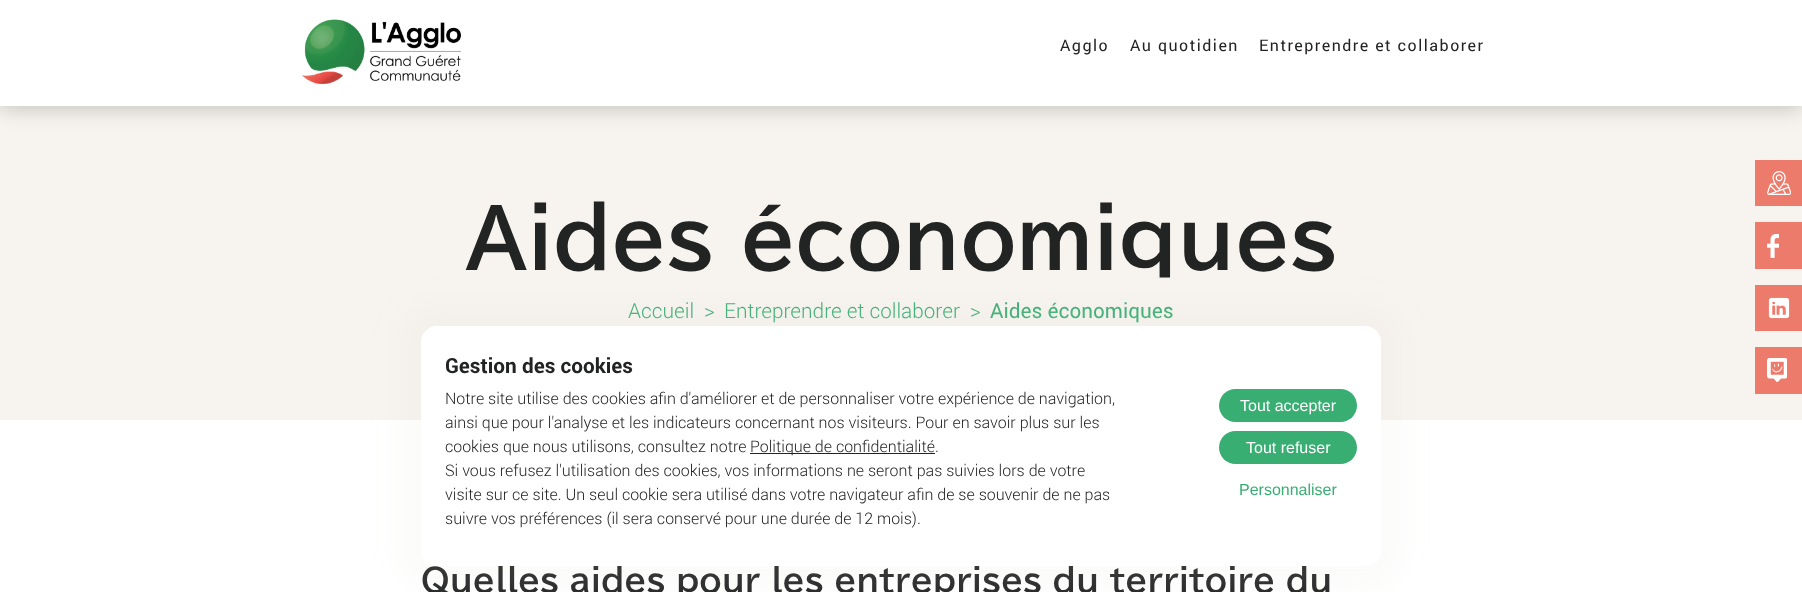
<svg xmlns="http://www.w3.org/2000/svg" width="1802" height="592" viewBox="0 0 1802 592">
  <defs>
    <filter id="blur1" x="-50%" y="-200%" width="200%" height="500%"><feGaussianBlur stdDeviation="10"/></filter>
    <filter id="blur2" x="-50%" y="-200%" width="200%" height="500%"><feGaussianBlur stdDeviation="12.5"/></filter>
  </defs>
  <rect width="100%" height="100%" fill="#ffffff"/>
  <rect x="0" y="106" width="1802" height="314" fill="#f7f3ef"/>
  <rect x="0" y="3" width="1802" height="106" fill="#000000" fill-opacity="0.2" filter="url(#blur1)"/>
  <rect x="0" y="0" width="1802" height="106" fill="#ffffff"/>
  <image x="302" y="19" width="159" height="65" href="img1.png"/>
  <text x="1060" y="51" font-family="Roboto" font-size="16" letter-spacing="1.5" fill="#222323">Agglo</text>
  <text x="1130" y="51" font-family="Roboto" font-size="16" letter-spacing="1.5" fill="#222323">Au quotidien</text>
  <text x="1259" y="51" font-family="Roboto" font-size="16" letter-spacing="1.5" fill="#222323">Entreprendre et collaborer</text>
  <rect x="1755" y="160" width="47" height="46" fill="#ec7b6c"/>
  <image x="1767" y="171" width="24" height="24" href="img2.png"/>
  <rect x="1755" y="222" width="47" height="47" fill="#ec7b6c"/>
  <image x="1767" y="234" width="12" height="24" href="img3.png"/>
  <rect x="1755" y="285" width="47" height="46" fill="#ec7b6c"/>
  <image x="1768" y="297" width="22" height="22" href="img4.png"/>
  <rect x="1755" y="347" width="47" height="47" fill="#ec7b6c"/>
  <image x="1767" y="358" width="20" height="24" href="img5.png"/>
  <text x="465" y="268" font-family="BIZ UDPGothic" font-size="80" font-weight="bold" fill="#222323">Aides économiques</text>
  <text x="628" y="318" font-family="Roboto" font-size="20.75" font-weight="300" fill="#38ae72">Accueil</text>
  <text x="704" y="318" font-family="Roboto" font-size="20.75" font-weight="300" fill="#38ae72">&gt;</text>
  <text x="724" y="318" font-family="Roboto" font-size="20.75" font-weight="300" fill="#38ae72">Entreprendre et collaborer</text>
  <text x="970" y="318" font-family="Roboto" font-size="20.75" font-weight="300" fill="#38ae72">&gt;</text>
  <text x="990" y="318" font-family="Roboto" font-size="20.75" fill="#38ae72">Aides économiques</text>
  <text x="421" y="592" font-family="BIZ UDPGothic" font-size="32" font-weight="bold" fill="#222323">Quelles aides pour les entreprises du territoire du</text>
  <rect x="396" y="301" width="1010" height="290" rx="41" fill="#dcdcd1" fill-opacity="0.11" filter="url(#blur2)"/>
  <rect x="421" y="326" width="960" height="240" rx="16" fill="#ffffff"/>
  <text x="445" y="373" font-family="Roboto" font-size="20.75" font-weight="bold" fill="#222323">Gestion des cookies</text>
  <text x="445" y="404" font-family="Roboto" font-size="16" font-weight="300" fill="#222323">Notre site utilise des cookies afin d'améliorer et de personnaliser votre expérience de navigation,</text>
  <text x="445" y="428" font-family="Roboto" font-size="16" font-weight="300" fill="#222323">ainsi que pour l'analyse et les indicateurs concernant nos visiteurs. Pour en savoir plus sur les</text>
  <text x="445" y="452" font-family="Roboto" font-size="16" font-weight="300" fill="#222323">cookies que nous utilisons, consultez notre</text>
  <rect x="750" y="453" width="185" height="1" fill="#222323"/>
  <text x="750" y="452" font-family="Roboto" font-size="16" font-weight="300" fill="#222323">Politique de confidentialité.</text>
  <text x="445" y="476" font-family="Roboto" font-size="16" font-weight="300" fill="#222323">Si vous refusez l'utilisation des cookies, vos informations ne seront pas suivies lors de votre</text>
  <text x="445" y="500" font-family="Roboto" font-size="16" font-weight="300" fill="#222323">visite sur ce site. Un seul cookie sera utilisé dans votre navigateur afin de se souvenir de ne pas</text>
  <text x="445" y="524" font-family="Roboto" font-size="16" font-weight="300" fill="#222323">suivre vos préférences (il sera conservé pour une durée de 12 mois).</text>
  <rect x="1219" y="389" width="138" height="33" rx="16.5" fill="#38ae72"/>
  <text x="1240" y="411" font-family="Liberation Sans" font-size="16" fill="#ffffff">Tout accepter</text>
  <rect x="1219" y="431" width="138" height="33" rx="16.5" fill="#38ae72"/>
  <text x="1246" y="453" font-family="Liberation Sans" font-size="16" fill="#ffffff">Tout refuser</text>
  <text x="1239" y="495" font-family="Liberation Sans" font-size="16" fill="#38ae72">Personnaliser</text>
</svg>
